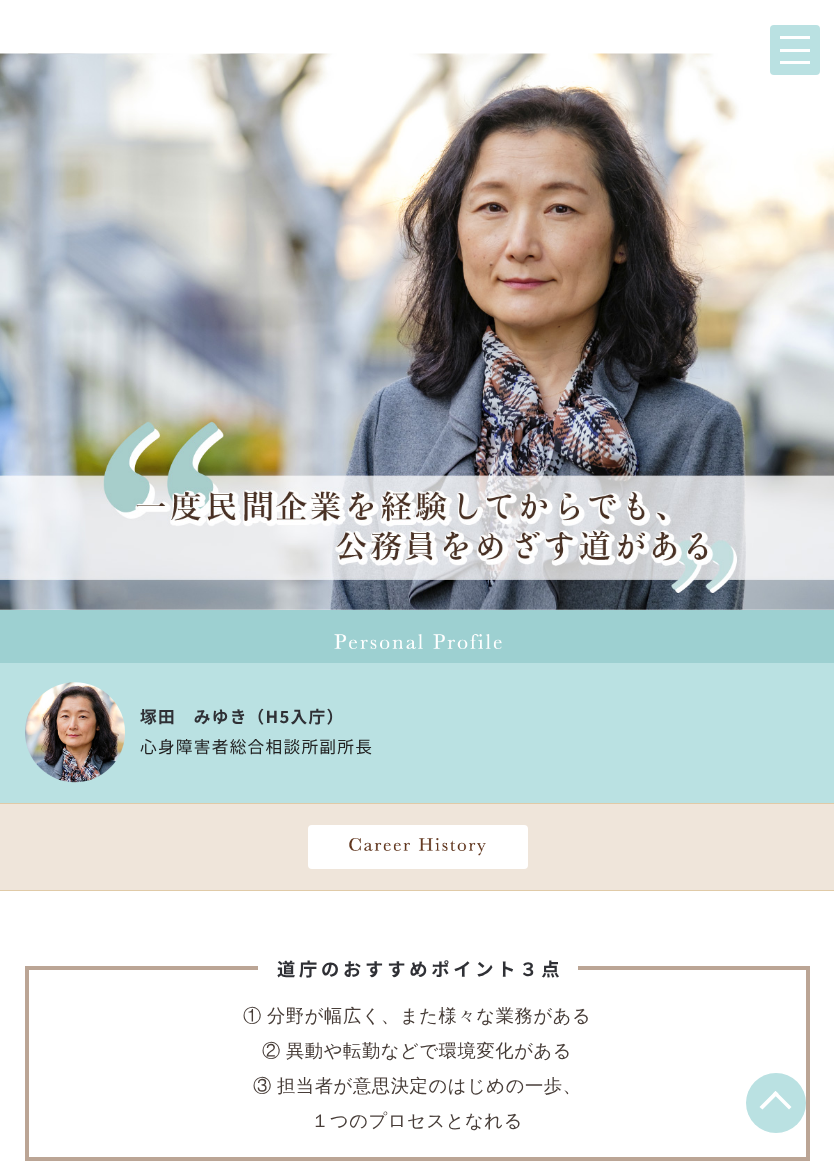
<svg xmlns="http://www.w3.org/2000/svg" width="834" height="1162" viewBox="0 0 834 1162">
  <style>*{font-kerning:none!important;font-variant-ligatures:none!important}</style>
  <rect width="100%" height="100%" fill="#ffffff"/>
  <image x="0" y="53" width="834" height="557" href="img1.png"/>
  <rect x="770" y="25" width="50" height="50" rx="4" fill="#bae1e2"/>
  <rect x="780" y="49" width="30" height="3" fill="#ffffff"/>
  <rect x="780" y="36" width="30" height="3" fill="#ffffff"/>
  <rect x="780" y="61" width="30" height="3" fill="#ffffff"/>
  <rect x="0" y="663" width="834" height="140" fill="#bae1e2"/>
  <rect x="0" y="610" width="834" height="53" fill="#9dd0d1"/>
  <image x="334" y="634" width="168" height="15" href="img2.png"/>
  <image x="25" y="682" width="100" height="101" href="img3.png"/>
  <text x="140" y="723" font-family="Noto Sans JP" font-size="16.7" font-weight="bold" letter-spacing="1.25" fill="#2f3035">塚田　みゆき（H5入庁）</text>
  <text x="140" y="753" font-family="Noto Sans JP" font-size="16.7" letter-spacing="1.25" fill="#222222">心身障害者総合相談所副所長</text>
  <rect x="0" y="803" width="834" height="1" fill="#e0caa7"/>
  <rect x="0" y="890" width="834" height="1" fill="#e0caa7"/>
  <rect x="0" y="804" width="834" height="86" fill="#efe5da"/>
  <rect x="308" y="825" width="220" height="44" rx="4" fill="#ffffff"/>
  <image x="349" y="838" width="137" height="18" href="img4.png"/>
  <rect x="27" y="968" width="781" height="191" fill="none" stroke="#bba595" stroke-width="4"/>
  <rect x="258" y="966" width="320" height="4" fill="#ffffff"/>
  <text x="277" y="976" font-family="Noto Sans JP" font-size="18.3" font-weight="bold" letter-spacing="3.75" fill="#2f3035">道庁のおすすめポイント３点</text>
  <text x="243" y="1022" word-spacing="-1" font-family="WenQuanYi Zen Hei" font-size="18.3" font-weight="500" letter-spacing="0.6" fill="#473d38">① 分野が幅広く、また様々な業務がある</text>
  <text x="262" y="1057" word-spacing="-1" font-family="WenQuanYi Zen Hei" font-size="18.3" font-weight="500" letter-spacing="0.6" fill="#473d38">② 異動や転勤などで環境変化がある</text>
  <text x="253" y="1092" word-spacing="-1" font-family="WenQuanYi Zen Hei" font-size="18.3" font-weight="500" letter-spacing="0.6" fill="#473d38">③ 担当者が意思決定のはじめの一歩、</text>
  <text x="311" y="1127" font-family="WenQuanYi Zen Hei" font-size="18.3" font-weight="500" letter-spacing="0.6" fill="#473d38">１つのプロセスとなれる</text>
  <circle cx="776" cy="1103" r="30" fill="#bae1e2"/>
  <path d="M759.5 1107L775.5 1091L778.5 1093.5L762.5 1109.5Z" fill="#ffffff"/>
  <path d="M773 1093.5L775.5 1091L791.5 1107L789 1109.5Z" fill="#ffffff"/>
</svg>
